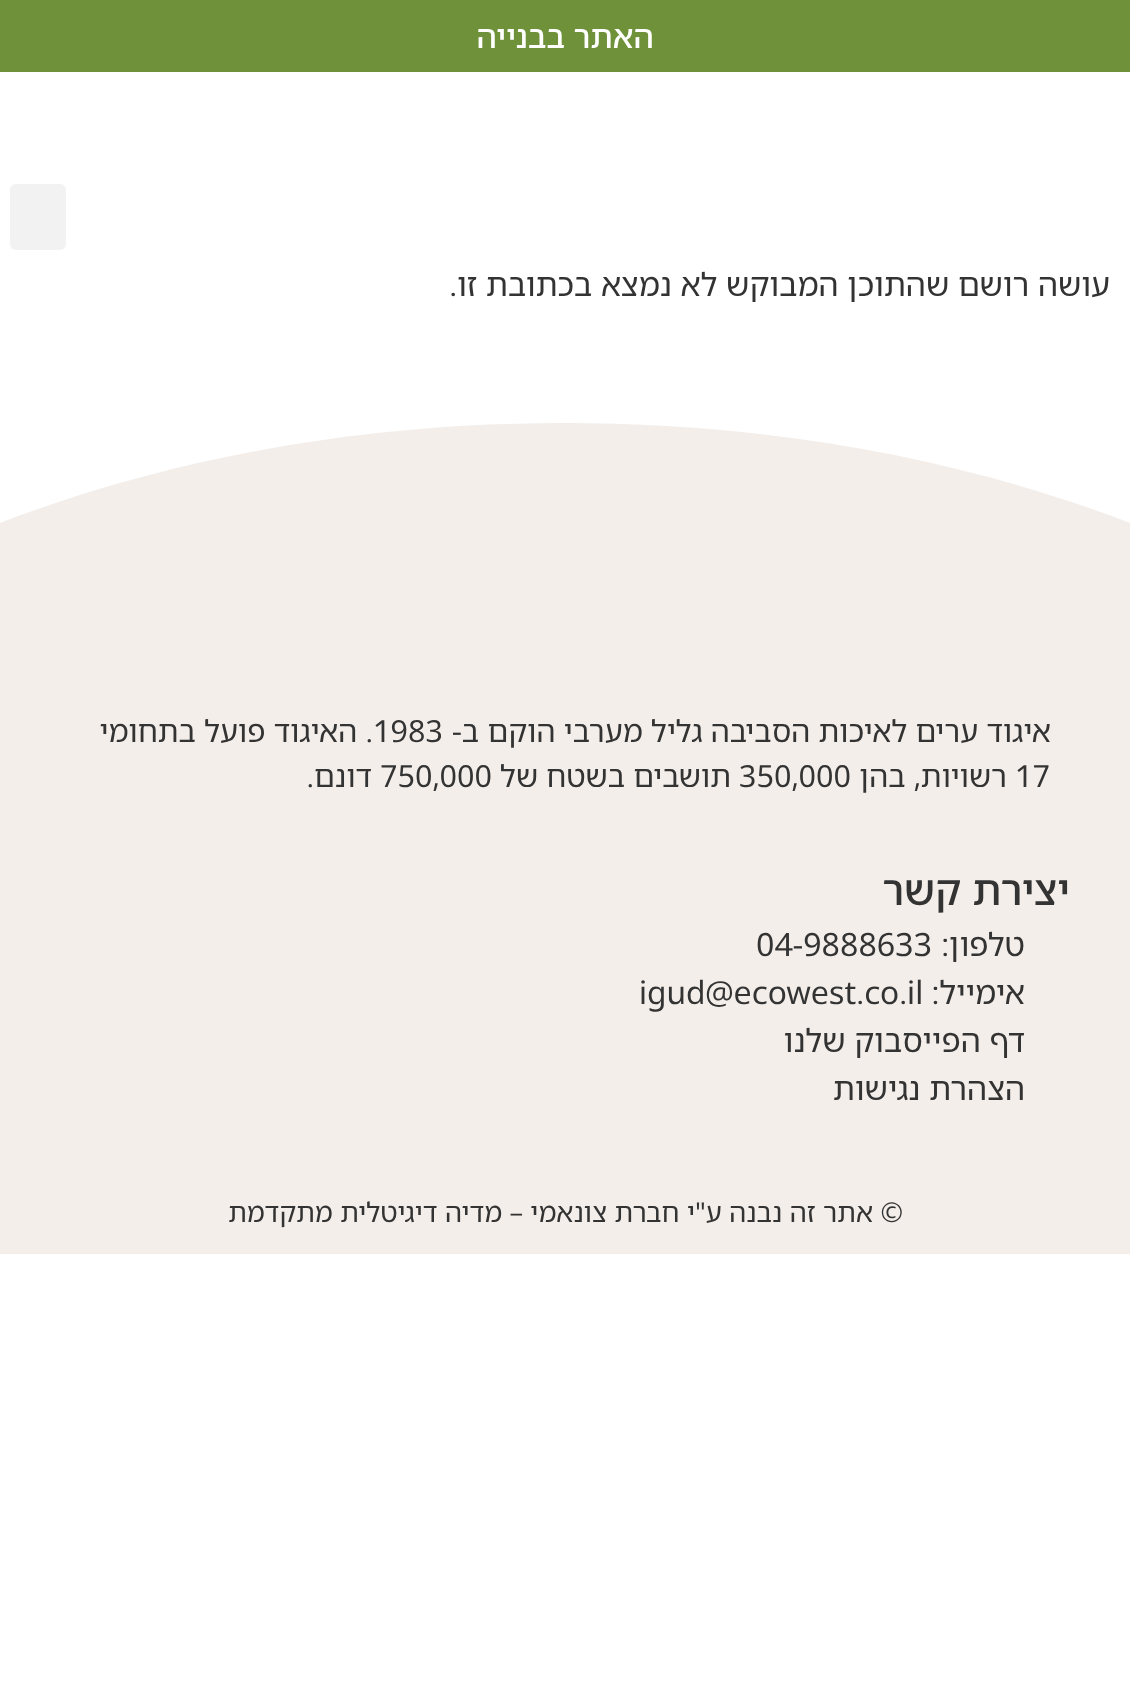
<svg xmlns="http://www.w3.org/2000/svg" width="1130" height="1700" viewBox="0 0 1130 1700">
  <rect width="100%" height="100%" fill="#ffffff"/>
  <rect x="0" y="0" width="1130" height="72" fill="#6f913a"/>
  <text x="654" y="48" font-family="Noto Sans Hebrew" font-size="32" font-weight="500" direction="rtl" fill="#ffffff">האתר בבנייה</text>
  <rect x="10" y="184" width="56" height="66" rx="6" fill="#f2f2f2"/>
  <text x="1110" y="296" font-family="Noto Sans Hebrew" font-size="32" direction="rtl" fill="#333333">עושה רושם שהתוכן המבוקש לא נמצא בכתובת זו.</text>
  <path d="M565 423C771 423 964 459 1130 523V1172H0V523C166 459 359 423 565 423Z" fill="#f3eeea"/>
  <text x="1051" y="742" font-family="Noto Sans Hebrew" font-size="30.4" direction="rtl" fill="#333333">איגוד ערים לאיכות הסביבה גליל מערבי הוקם ב-</text>
  <text x="373" y="742" font-family="Noto Sans Hebrew" font-size="30.4" fill="#333333">1983</text>
  <text x="373" y="742" font-family="Noto Sans Hebrew" font-size="30.4" direction="rtl" fill="#333333">. האיגוד פועל בתחומי</text>
  <text x="1015" y="787" font-family="Noto Sans Hebrew" font-size="30.4" fill="#333333">17</text>
  <text x="1007" y="787" font-family="Noto Sans Hebrew" font-size="30.4" direction="rtl" fill="#333333">רשויות, בהן</text>
  <text x="739" y="787" font-family="Noto Sans Hebrew" font-size="30.4" fill="#333333">350,000</text>
  <text x="731" y="787" font-family="Noto Sans Hebrew" font-size="30.4" direction="rtl" fill="#333333">תושבים בשטח של</text>
  <text x="380" y="787" font-family="Noto Sans Hebrew" font-size="30.4" fill="#333333">750,000</text>
  <text x="372" y="787" font-family="Noto Sans Hebrew" font-size="30.4" direction="rtl" fill="#333333">דונם.</text>
  <text x="1070" y="905" font-family="Noto Sans Hebrew" font-size="41.5" font-weight="500" direction="rtl" fill="#333333">יצירת קשר</text>
  <text x="1025" y="956" font-family="Noto Sans Hebrew" font-size="32" direction="rtl" fill="#333333">טלפון:</text>
  <text x="756" y="956" font-family="Noto Sans Hebrew" font-size="32" fill="#333333">04-9888633</text>
  <text x="1025" y="1004" font-family="Noto Sans Hebrew" font-size="32" direction="rtl" fill="#333333">אימייל:</text>
  <text x="639" y="1004" font-family="Noto Sans Hebrew" font-size="32" fill="#333333">igud@ecowest.co.il</text>
  <text x="1025" y="1052" font-family="Noto Sans Hebrew" font-size="32" direction="rtl" fill="#333333">דף הפייסבוק שלנו</text>
  <text x="1025" y="1100" font-family="Noto Sans Hebrew" font-size="32" direction="rtl" fill="#333333">הצהרת נגישות</text>
  <rect x="0" y="1172" width="1130" height="82" fill="#f3eeea"/>
  <text x="903" y="1222" font-family="Noto Sans Hebrew" font-size="27.2" direction="rtl" fill="#333333">© אתר זה נבנה ע"י חברת צונאמי – מדיה דיגיטלית מתקדמת</text>
</svg>
